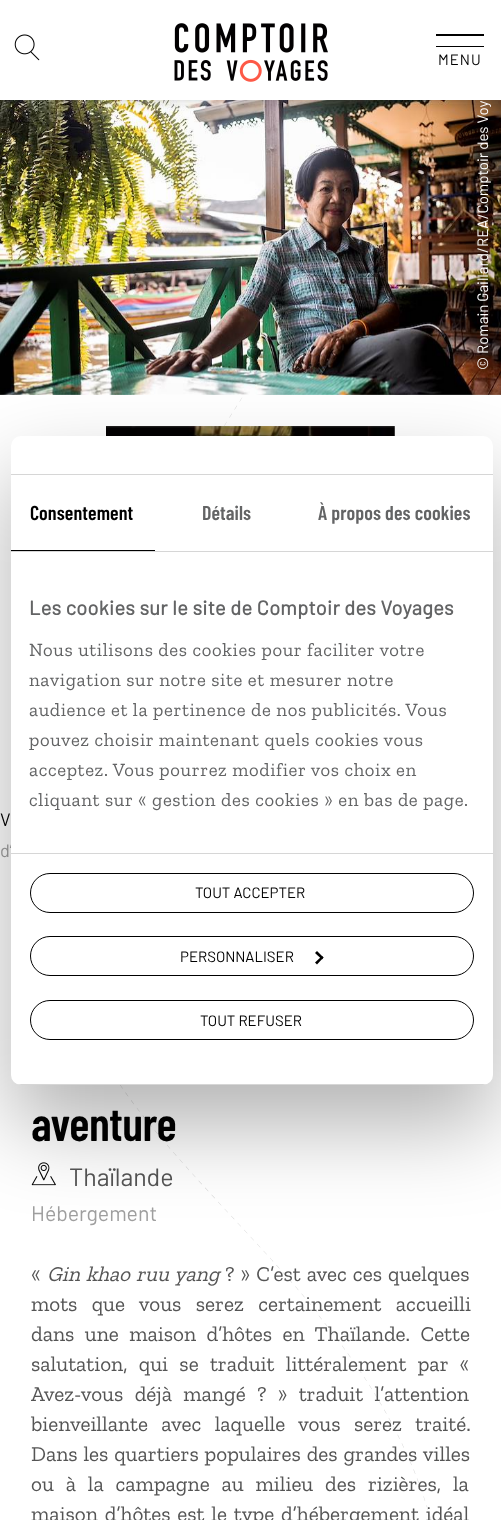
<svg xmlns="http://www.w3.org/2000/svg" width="501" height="1520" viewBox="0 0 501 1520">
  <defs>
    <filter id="blur1" x="-50%" y="-200%" width="200%" height="500%"><feGaussianBlur stdDeviation="5"/></filter>
    <filter id="blur2" x="-50%" y="-200%" width="200%" height="500%"><feGaussianBlur stdDeviation="42.5"/></filter>
    <clipPath id="clip1"><rect x="11" y="436" width="482" height="649" rx="10"/></clipPath>
  </defs>
  <rect width="100%" height="100%" fill="#ffffff"/>
  <image x="120" y="397" width="311" height="1122" href="img1.png"/>
  <image x="0" y="100" width="501" height="295" href="img4.png"/>
  <rect x="0" y="1" width="501" height="100" fill="#323232" fill-opacity="0.2" filter="url(#blur1)"/>
  <rect x="0" y="0" width="501" height="100" fill="#ffffff"/>
  <image x="174" y="23" width="154" height="59" href="img2.png"/>
  <image x="14" y="34" width="26" height="27" href="img3.png"/>
  <path d="M436 34H484V36H436ZM436 46H484V47H436Z" fill="#000000"/>
  <text x="438" y="65" font-family="Barlow" font-size="15" letter-spacing="1" fill="#000000">MENU</text>
  <text x="488" y="370" transform="rotate(-90 488 370)" font-family="Barlow" font-size="15" fill="#ffffff">© Romain Gaillard/REA/Comptoir des Voyages</text>
  <image x="106" y="426" width="289" height="10" href="img5.png"/>
  <text x="0" y="826" font-family="Barlow" font-size="18" fill="#000000">V</text>
  <text x="0" y="857" font-family="Barlow" font-size="18" fill="#9f9f9f">d’</text>
  <text x="31" y="1141" font-family="Barlow Condensed" font-size="47.5" font-weight="600" letter-spacing="-0.5" fill="#000000">aventure</text>
  <image x="31" y="1162" width="25" height="24" href="img6.png"/>
  <text x="69" y="1186" font-family="Barlow" font-size="25" fill="#555555">Thaïlande</text>
  <text x="31" y="1221" font-family="Barlow" font-size="21.25" fill="#9f9f9f">Hébergement</text>
  <text x="31" y="1281" font-family="Zilla Slab" font-size="21.25" fill="#555555">«</text>
  <text x="47" y="1281" word-spacing="1.25" font-family="Zilla Slab" font-size="21.25" font-style="italic" fill="#555555">Gin khao ruu yang</text>
  <text x="225" y="1281" word-spacing="1.25" font-family="Zilla Slab" font-size="21.25" fill="#555555">? » C’est avec ces quelques</text>
  <text x="31" y="1311" word-spacing="9.5" font-family="Zilla Slab" font-size="21.25" fill="#555555">mots que vous serez certainement accueilli</text>
  <text x="31" y="1341" word-spacing="5.5" font-family="Zilla Slab" font-size="21.25" fill="#555555">dans une maison d’hôtes en Thaïlande. Cette</text>
  <text x="31" y="1371" word-spacing="6.5" font-family="Zilla Slab" font-size="21.25" fill="#555555">salutation, qui se traduit littéralement par «</text>
  <text x="31" y="1401" word-spacing="6.5" font-family="Zilla Slab" font-size="21.25" fill="#555555">Avez-vous déjà mangé ? » traduit l’attention</text>
  <text x="31" y="1431" word-spacing="8.5" font-family="Zilla Slab" font-size="21.25" fill="#555555">bienveillante avec laquelle vous serez traité.</text>
  <text x="31" y="1461" word-spacing="1" font-family="Zilla Slab" font-size="21.25" fill="#555555">Dans les quartiers populaires des grandes villes</text>
  <text x="31" y="1491" word-spacing="7" font-family="Zilla Slab" font-size="21.25" fill="#555555">ou à la campagne au milieu des rizières, la</text>
  <text x="31" y="1521" word-spacing="2" font-family="Zilla Slab" font-size="21.25" fill="#555555">maison d’hôtes est le type d’hébergement idéal</text>
  <rect x="11" y="476" width="482" height="649" rx="10" fill="#000000" fill-opacity="0.3" filter="url(#blur2)"/>
  <rect x="11" y="436" width="482" height="649" rx="10" fill="#ffffff"/>
  <rect x="11" y="474" width="482" height="1" fill="#d6d6d6"/>
  <rect x="11" y="551" width="482" height="1" fill="#d6d6d6"/>
  <rect x="11" y="550" width="144" height="1" fill="#000000"/>
  <text x="30" y="520" font-family="Barlow Condensed" font-size="20" font-weight="600" letter-spacing="0.1" fill="#000000">Consentement</text>
  <text x="202" y="520" font-family="Barlow Condensed" font-size="20" font-weight="600" letter-spacing="0.1" fill="#636465">Détails</text>
  <text x="318" y="520" font-family="Barlow Condensed" font-size="20" font-weight="600" letter-spacing="0.1" fill="#636465">À propos des cookies</text>
  <rect x="11" y="853" width="482" height="1" fill="#d6d6d6"/>
  <text x="29" y="615" font-family="Barlow" font-size="20" font-weight="bold" letter-spacing="0.3" fill="#636465">Les cookies sur le site de Comptoir des Voyages</text>
  <text x="29" y="656" font-family="Zilla Slab" font-size="18.75" letter-spacing="0.62" fill="#636465">Nous utilisons des cookies pour faciliter votre</text>
  <text x="29" y="686" font-family="Zilla Slab" font-size="18.75" letter-spacing="0.62" fill="#636465">navigation sur notre site et mesurer notre</text>
  <text x="29" y="716" font-family="Zilla Slab" font-size="18.75" letter-spacing="0.62" fill="#636465">audience et la pertinence de nos publicités. Vous</text>
  <text x="29" y="746" font-family="Zilla Slab" font-size="18.75" letter-spacing="0.62" fill="#636465">pouvez choisir maintenant quels cookies vous</text>
  <text x="29" y="776" font-family="Zilla Slab" font-size="18.75" letter-spacing="0.62" fill="#636465">acceptez. Vous pourrez modifier vos choix en</text>
  <text x="29" y="806" font-family="Zilla Slab" font-size="18.75" letter-spacing="0.62" fill="#636465">cliquant sur « gestion des cookies » en bas de page.</text>
  <g clip-path="url(#clip1)">
    <rect x="11" y="1084" width="482" height="1" fill="#d6d6d6"/>
  </g>
  <rect x="30.5" y="873.5" width="443" height="39" rx="19.5" fill="none" stroke="#000000"/>
  <text x="195" y="898" font-family="Barlow" font-size="15" fill="#000000">TOUT ACCEPTER</text>
  <rect x="30.5" y="936.5" width="443" height="39" rx="19.5" fill="none" stroke="#000000"/>
  <text x="180" y="962" font-family="Barlow" font-size="15" fill="#000000">PERSONNALISER</text>
  <path d="M317 951L323.5 957.5L322 959.5L315 953Z" fill="#000000"/>
  <path d="M322 956L323.5 957.5L317 964.5L315 962.5Z" fill="#000000"/>
  <rect x="30.5" y="1000.5" width="443" height="39" rx="19.5" fill="none" stroke="#000000"/>
  <text x="200" y="1026" font-family="Barlow" font-size="15" fill="#000000">TOUT REFUSER</text>
</svg>
